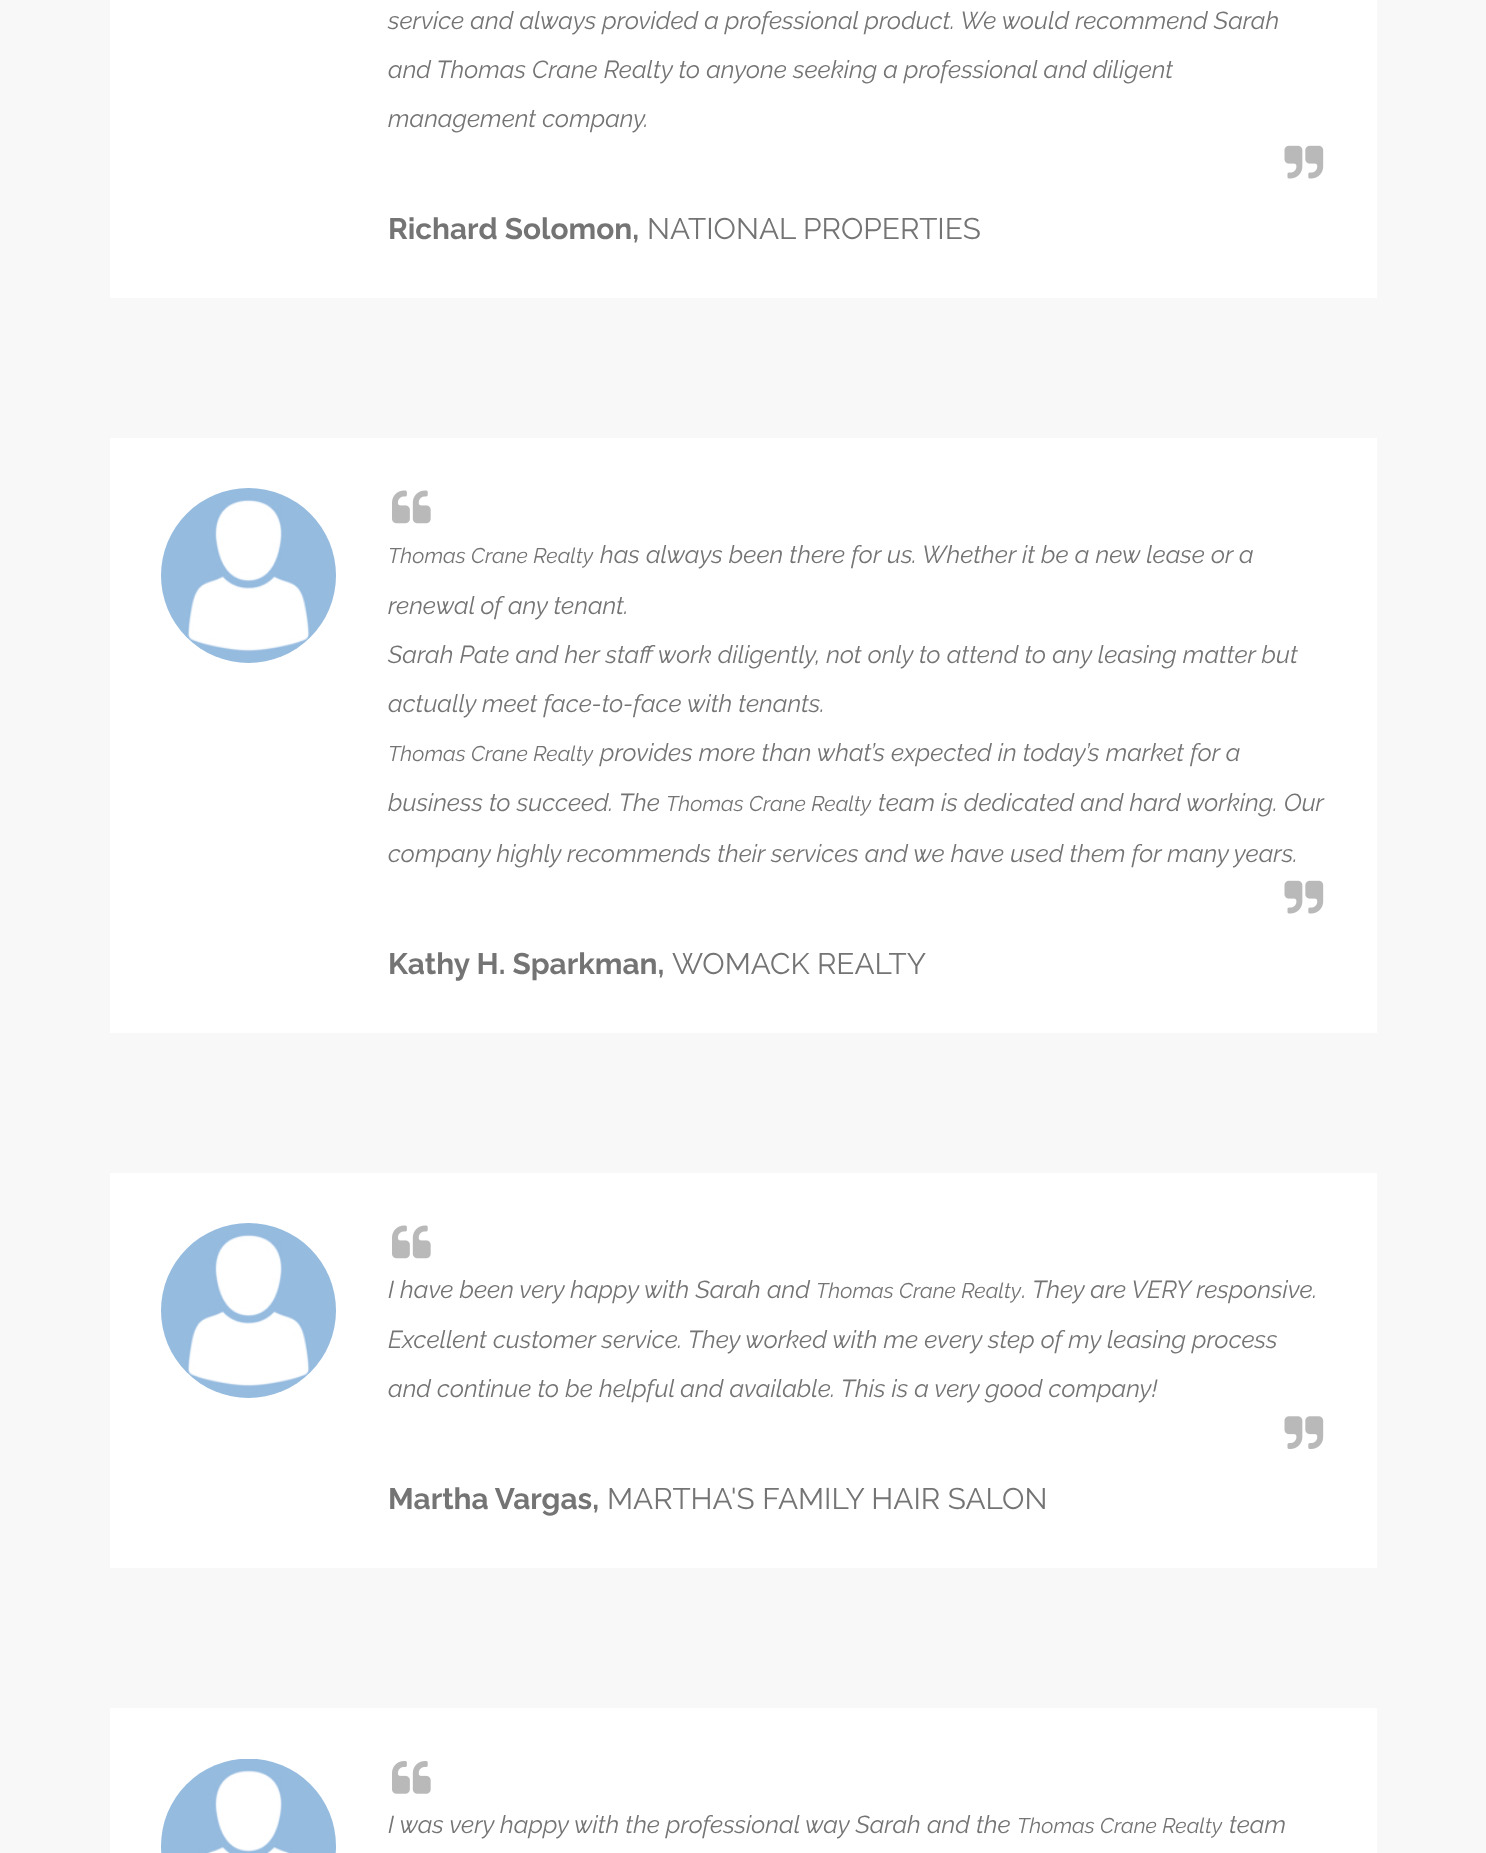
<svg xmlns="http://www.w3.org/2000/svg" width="1486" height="1853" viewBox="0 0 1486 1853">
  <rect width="100%" height="100%" fill="#f8f8f8"/>
  <rect x="110" y="0" width="1267" height="298" fill="#ffffff"/>
  <text x="388" y="29" font-family="Raleway" font-size="24.5" font-style="italic" fill="#747474">service and always provided a professional product. We would recommend Sarah</text>
  <text x="388" y="78" font-family="Raleway" font-size="24.5" font-style="italic" fill="#747474">and Thomas Crane Realty to anyone seeking a professional and diligent</text>
  <text x="388" y="127" font-family="Raleway" font-size="24.5" font-style="italic" fill="#747474">management company.</text>
  <image x="1284" y="145" width="40" height="34" href="img1.png"/>
  <text x="388" y="239" font-family="Raleway" font-size="29.75" font-weight="bold" fill="#747474">Richard Solomon,</text>
  <text x="647" y="239" font-family="Raleway" font-size="29.75" fill="#747474">NATIONAL PROPERTIES</text>
  <rect x="110" y="438" width="1267" height="595" fill="#ffffff"/>
  <image x="161" y="488" width="175" height="175" href="img2.png"/>
  <image x="392" y="490" width="39" height="34" href="img3.png"/>
  <text x="388" y="563" font-family="Raleway" font-size="21.25" font-style="italic" fill="#747474">Thomas Crane Realty</text>
  <text x="600" y="563" font-family="Raleway" font-size="24.5" font-style="italic" fill="#747474">has always been there for us. Whether it be a new lease or a</text>
  <text x="388" y="614" font-family="Raleway" font-size="24.5" font-style="italic" fill="#747474">renewal of any tenant.</text>
  <text x="388" y="663" font-family="Raleway" font-size="24.5" font-style="italic" fill="#747474">Sarah Pate and her staff work diligently, not only to attend to any leasing matter but</text>
  <text x="388" y="712" font-family="Raleway" font-size="24.5" font-style="italic" fill="#747474">actually meet face-to-face with tenants.</text>
  <text x="388" y="761" font-family="Raleway" font-size="21.25" font-style="italic" fill="#747474">Thomas Crane Realty</text>
  <text x="600" y="761" font-family="Raleway" font-size="24.5" font-style="italic" fill="#747474">provides more than what’s expected in today’s market for a</text>
  <text x="388" y="811" font-family="Raleway" font-size="24.5" font-style="italic" fill="#747474">business to succeed. The</text>
  <text x="666" y="811" font-family="Raleway" font-size="21.25" font-style="italic" fill="#747474">Thomas Crane Realty</text>
  <text x="878" y="811" font-family="Raleway" font-size="24.5" font-style="italic" fill="#747474">team is dedicated and hard working. Our</text>
  <text x="388" y="862" font-family="Raleway" font-size="24.5" font-style="italic" fill="#747474">company highly recommends their services and we have used them for many years.</text>
  <image x="1284" y="880" width="40" height="34" href="img1.png"/>
  <text x="388" y="974" font-family="Raleway" font-size="29.75" font-weight="bold" fill="#747474">Kathy H. Sparkman,</text>
  <text x="672" y="974" font-family="Raleway" font-size="29.75" fill="#747474">WOMACK REALTY</text>
  <rect x="110" y="1173" width="1267" height="395" fill="#ffffff"/>
  <image x="161" y="1223" width="175" height="175" href="img2.png"/>
  <image x="392" y="1225" width="39" height="34" href="img3.png"/>
  <text x="388" y="1298" font-family="Raleway" font-size="24.5" font-style="italic" fill="#747474">I have been very happy with Sarah and</text>
  <text x="816" y="1298" font-family="Raleway" font-size="21.25" font-style="italic" fill="#747474">Thomas Crane Realty</text>
  <text x="1022" y="1298" font-family="Raleway" font-size="24.5" font-style="italic" fill="#747474">. They are VERY responsive.</text>
  <text x="388" y="1348" font-family="Raleway" font-size="24.5" font-style="italic" fill="#747474">Excellent customer service. They worked with me every step of my leasing process</text>
  <text x="388" y="1397" font-family="Raleway" font-size="24.5" font-style="italic" fill="#747474">and continue to be helpful and available. This is a very good company!</text>
  <image x="1284" y="1416" width="40" height="33" href="img4.png"/>
  <text x="388" y="1509" font-family="Raleway" font-size="29.75" font-weight="bold" fill="#747474">Martha Vargas,</text>
  <text x="607" y="1509" font-family="Raleway" font-size="29.75" fill="#747474">MARTHA'S FAMILY HAIR SALON</text>
  <rect x="110" y="1708" width="1267" height="145" fill="#ffffff"/>
  <image x="161" y="1759" width="175" height="94" href="img5.png"/>
  <image x="392" y="1761" width="39" height="33" href="img6.png"/>
  <text x="388" y="1833" font-family="Raleway" font-size="24.5" font-style="italic" fill="#747474">I was very happy with the professional way Sarah and the</text>
  <text x="1017" y="1833" font-family="Raleway" font-size="21.25" font-style="italic" fill="#747474">Thomas Crane Realty</text>
  <text x="1229" y="1833" font-family="Raleway" font-size="24.5" font-style="italic" fill="#747474">team</text>
</svg>
